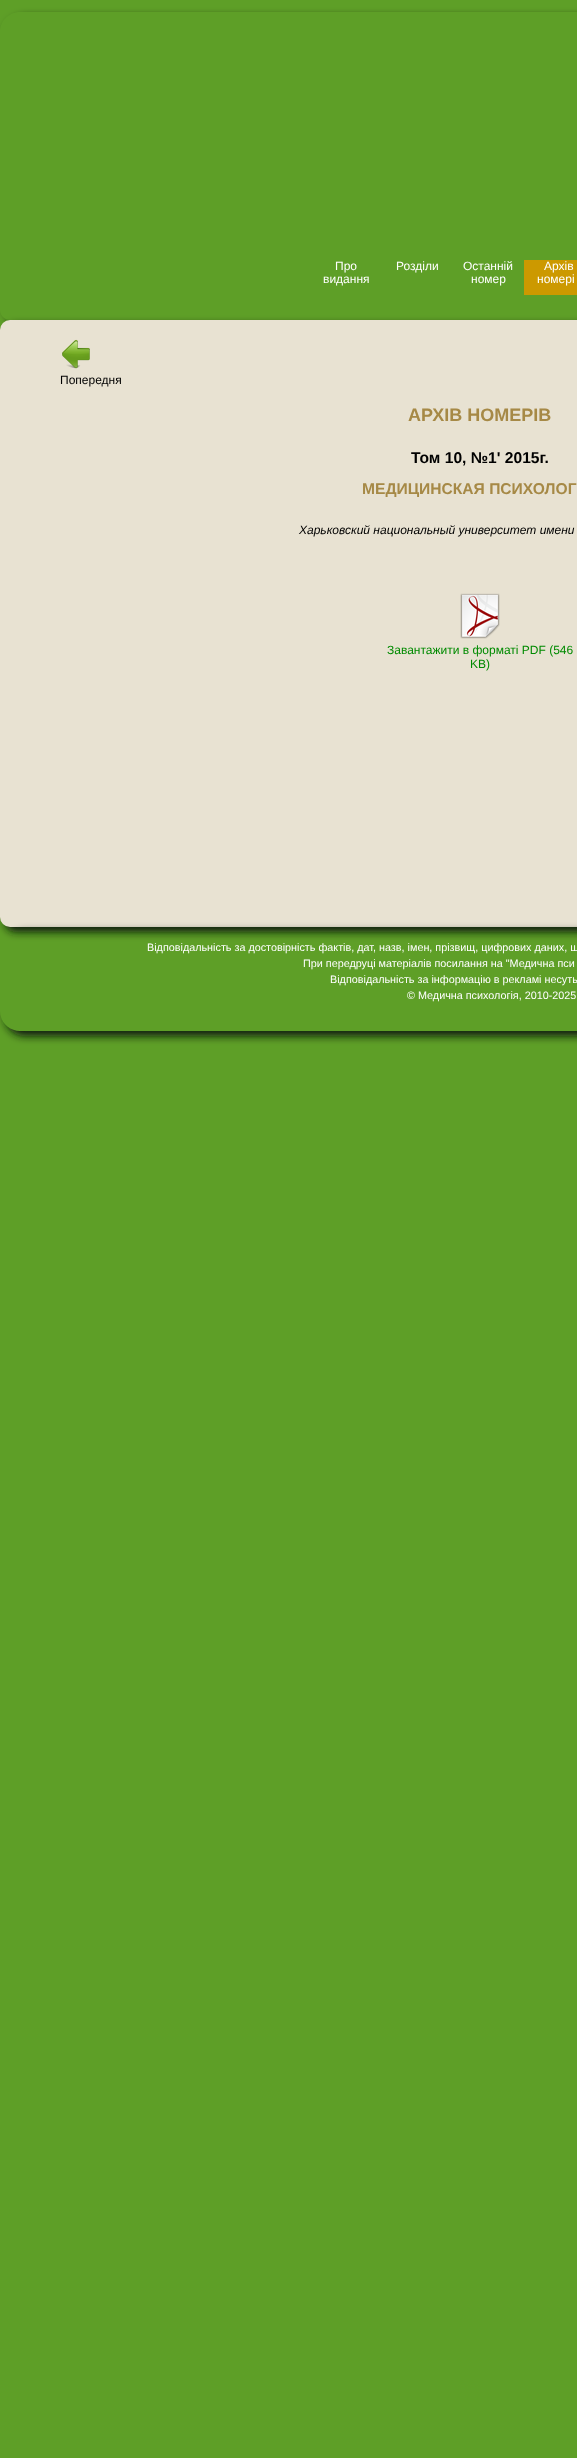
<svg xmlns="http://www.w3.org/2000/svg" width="577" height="2458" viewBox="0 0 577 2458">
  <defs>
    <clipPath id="clip1"><path d="M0 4H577V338H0ZM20 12H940C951 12 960 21 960 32V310C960 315.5 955.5 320 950 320H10C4.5 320 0 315.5 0 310V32C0 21 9 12 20 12Z" clip-rule="evenodd"/></clipPath>
    <filter id="blur1" x="-50%" y="-200%" width="200%" height="500%"><feGaussianBlur stdDeviation="4"/></filter>
    <clipPath id="clip2"><path d="M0 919H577V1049H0ZM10 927H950C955.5 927 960 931.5 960 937V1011C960 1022 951 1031 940 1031H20C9 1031 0 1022 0 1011V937C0 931.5 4.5 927 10 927Z" clip-rule="evenodd"/></clipPath>
  </defs>
  <rect width="100%" height="100%" fill="#5e9f27"/>
  <g clip-path="url(#clip1)">
    <rect x="5" y="17" width="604" height="308" rx="20" fill="#0e1d10" filter="url(#blur1)"/>
  </g>
  <text x="335" y="270" font-family="Liberation Sans" font-size="12" fill="#ffffff">Про</text>
  <text x="323" y="283" font-family="Liberation Sans" font-size="12" fill="#ffffff">видання</text>
  <text x="396" y="270" font-family="Liberation Sans" font-size="12" fill="#ffffff">Розділи</text>
  <text x="463" y="270" font-family="Liberation Sans" font-size="12" fill="#ffffff">Останній</text>
  <text x="471" y="283" font-family="Liberation Sans" font-size="12" fill="#ffffff">номер</text>
  <rect x="524" y="260" width="53" height="35" fill="#cc9900"/>
  <text x="544" y="270" font-family="Liberation Sans" font-size="12" fill="#ffffff">Архів</text>
  <text x="537" y="283" font-family="Liberation Sans" font-size="12" fill="#ffffff">номері</text>
  <rect x="5" y="325" width="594" height="607" rx="10" fill="#0e1d10" filter="url(#blur1)"/>
  <rect x="0" y="320" width="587" height="607" rx="10" fill="#e8e2d2"/>
  <image x="62" y="339" width="28" height="30" href="img1.png"/>
  <text x="60" y="384" font-family="Liberation Sans" font-size="12" fill="#000000">Попередня</text>
  <text x="408" y="421" font-family="Liberation Sans" font-size="18" font-weight="bold" fill="#a68946">АРХІВ НОМЕРІВ</text>
  <text x="411" y="463" font-family="Liberation Sans" font-size="15.6" font-weight="bold" fill="#000000">Том 10, №1' 2015г.</text>
  <text x="362" y="494" font-family="Liberation Sans" font-size="15.6" font-weight="bold" fill="#a68946">МЕДИЦИНСКАЯ ПСИХОЛОГ</text>
  <text x="299" y="534" font-family="Liberation Sans" font-size="12" font-style="italic" fill="#000000">Харьковский национальный университет имени</text>
  <image x="460" y="593" width="40" height="46" href="img2.png"/>
  <text x="387" y="654" font-family="Liberation Sans" font-size="12" fill="#008a00">Завантажити в форматі PDF (546</text>
  <text x="470" y="668" font-family="Liberation Sans" font-size="12" fill="#008a00">KB)</text>
  <g clip-path="url(#clip2)">
    <rect x="5" y="932" width="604" height="104" rx="20" fill="#0e1d10" filter="url(#blur1)"/>
  </g>
  <text x="147" y="951" font-family="Liberation Sans" font-size="10.8" fill="#ffffff">Відповідальність за достовірність фактів, дат, назв, імен, прізвищ, цифрових даних, щ</text>
  <text x="303" y="967" font-family="Liberation Sans" font-size="10.8" fill="#ffffff">При передруці матеріалів посилання на "Медична пси</text>
  <text x="330" y="983" font-family="Liberation Sans" font-size="10.8" fill="#ffffff">Відповідальність за інформацію в рекламі несуть</text>
  <text x="407" y="999" font-family="Liberation Sans" font-size="10.8" fill="#ffffff">© Медична психологія, 2010-2025</text>
</svg>
